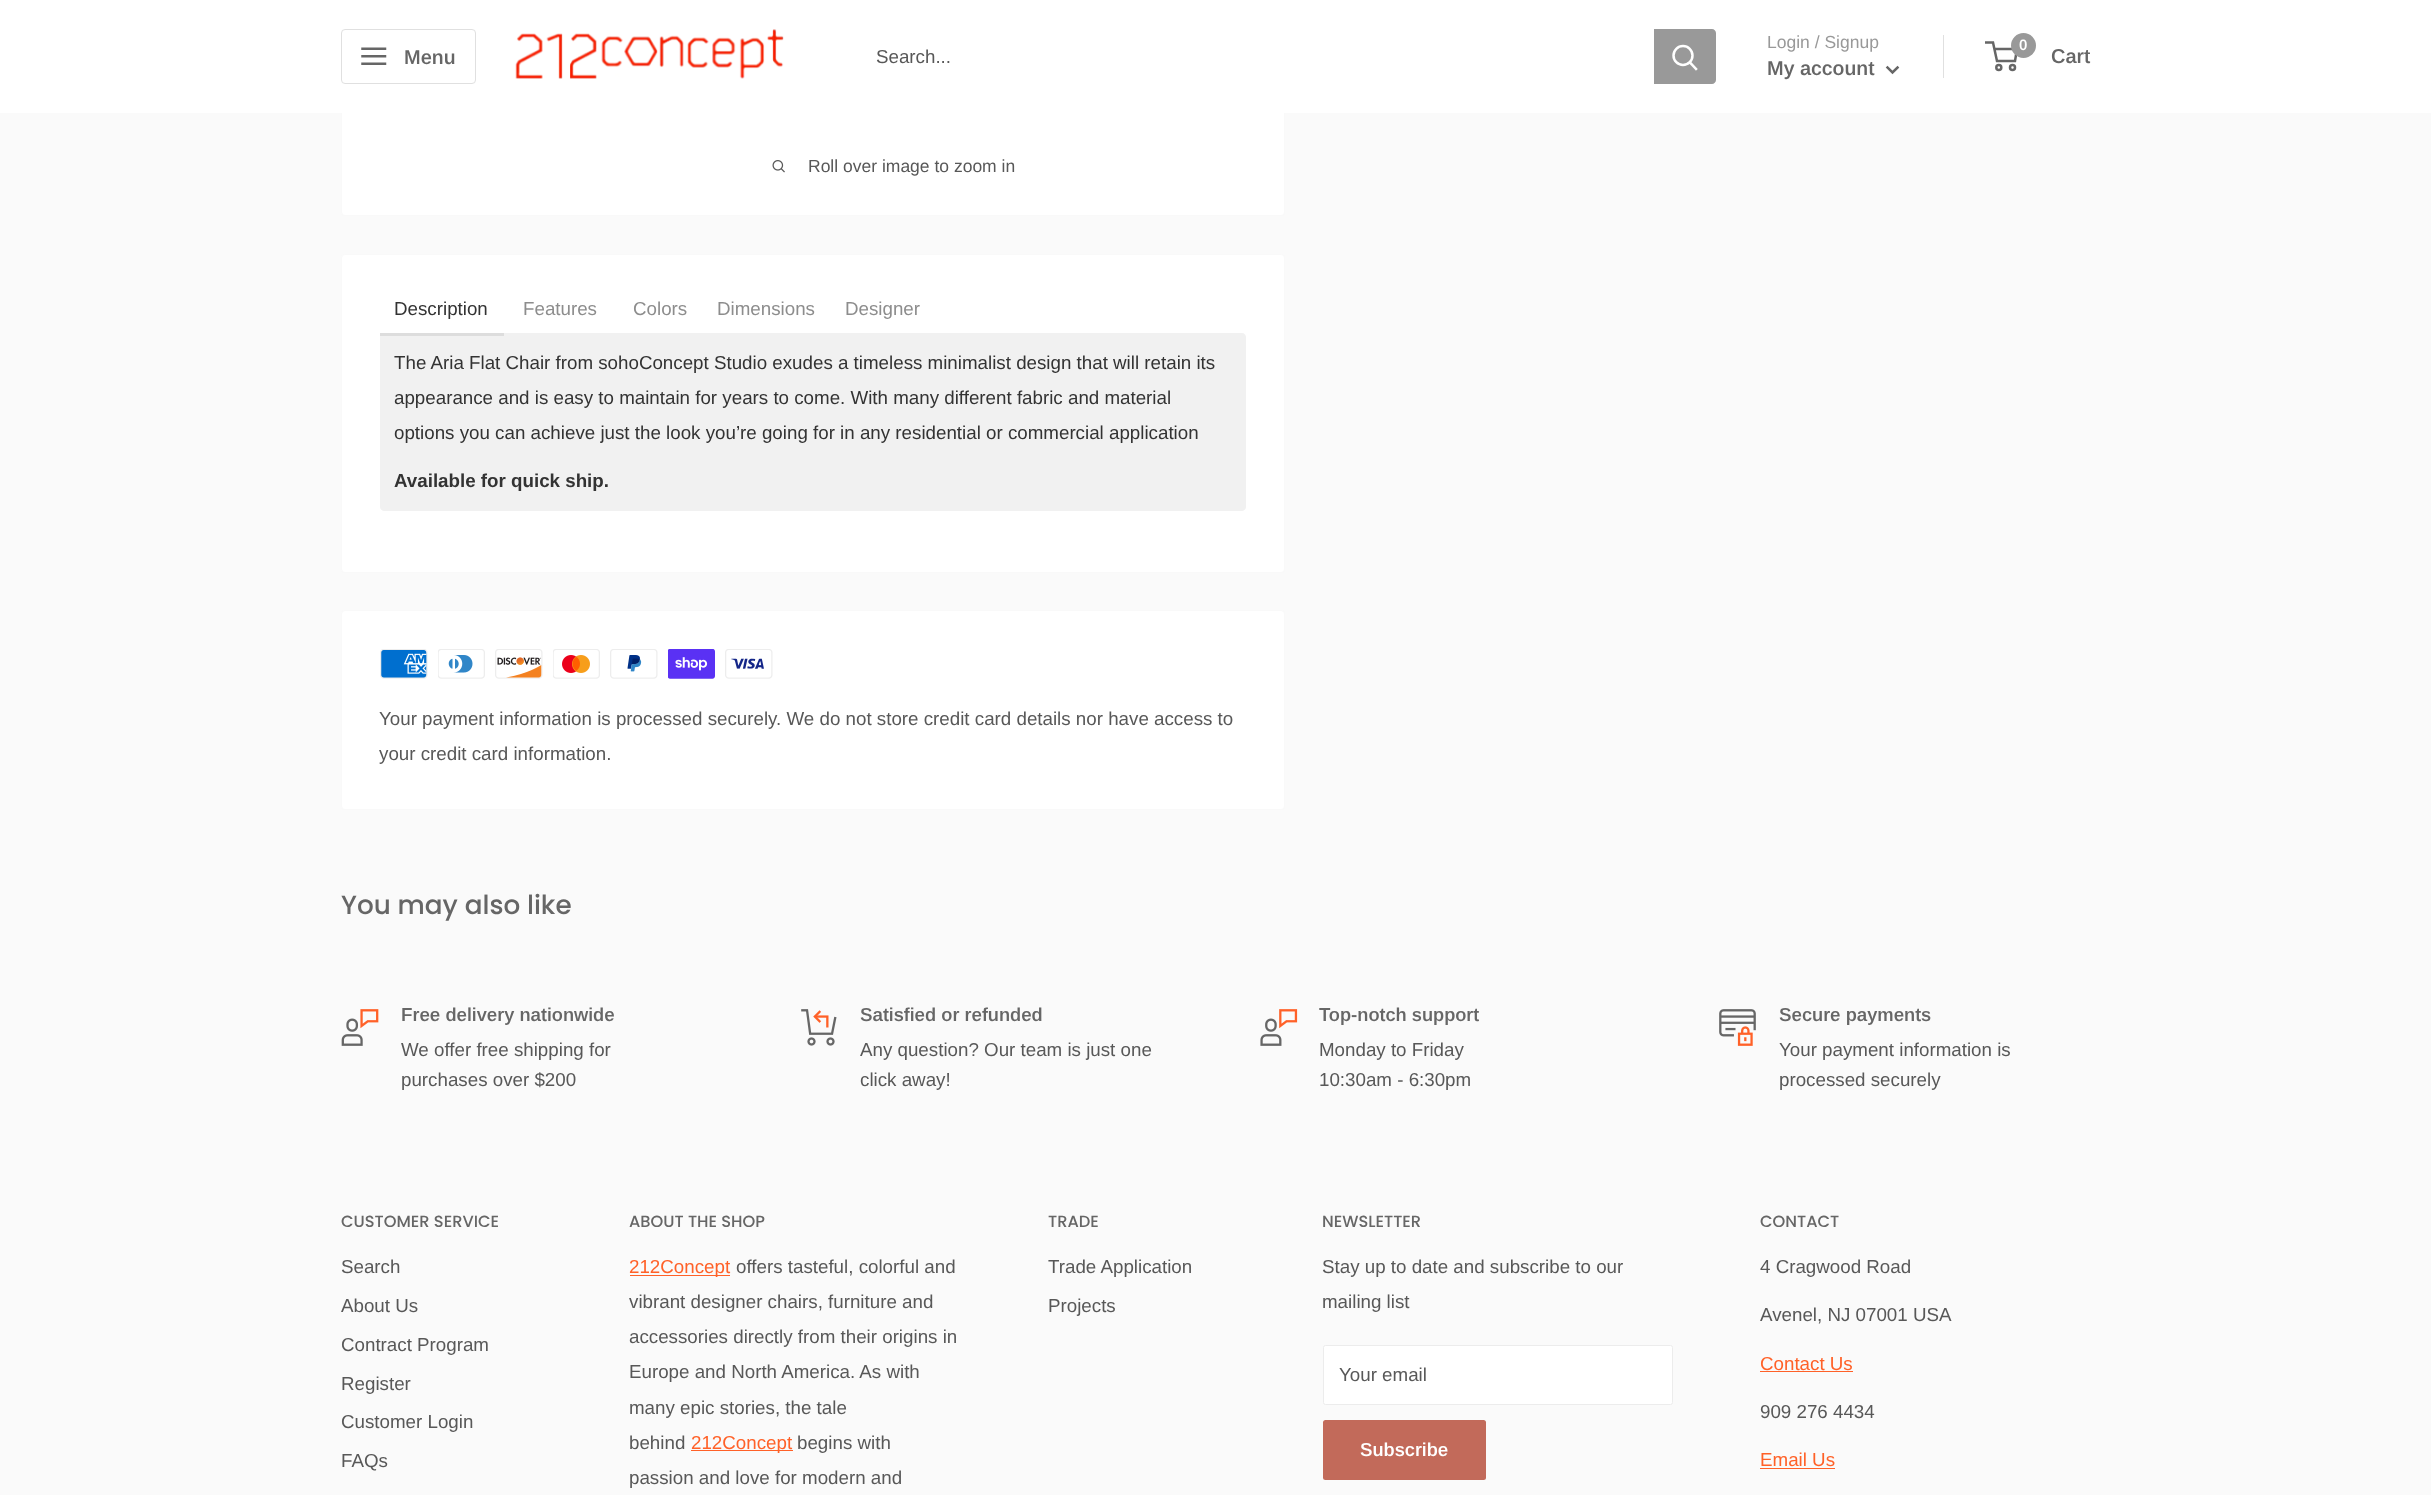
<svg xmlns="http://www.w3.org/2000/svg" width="2431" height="1495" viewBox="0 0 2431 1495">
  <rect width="100%" height="100%" fill="#fafafa"/>
  <rect x="341.5" y="-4.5" width="943" height="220" rx="3.5" fill="#ffffff" stroke="#f9f9f9"/>
  <rect x="0" y="0" width="2431" height="113" fill="#ffffff"/>
  <rect x="341.5" y="29.5" width="134" height="54" rx="3.5" fill="none" stroke="#e0e0e0"/>
  <image x="361" y="47" width="26" height="18" href="img1.png"/>
  <text x="404" y="64" font-family="Arimo" font-size="20" font-weight="600" fill="#666666">Menu</text>
  <image x="515" y="29" width="269" height="50" href="img2.png"/>
  <text x="876" y="63" font-family="Arimo" font-size="18.75" fill="#585858">Search...</text>
  <path d="M1654 29H1712C1714 29 1716 31 1716 33V80C1716 82 1714 84 1712 84H1654Z" fill="#999999"/>
  <path d="M1696 69L1690 62.5" fill="none" stroke="#ffffff" stroke-width="2.5" stroke-linecap="square"/>
  <circle cx="1683" cy="55.5" r="9.5" fill="none" stroke="#ffffff" stroke-width="2.5"/>
  <text x="1767" y="48" font-family="Arimo" font-size="17.5" fill="#999999">Login / Signup</text>
  <rect x="1943" y="35" width="1" height="43" fill="#e0e0e0"/>
  <text x="1767" y="75" font-family="Arimo" font-size="20" font-weight="600" fill="#666666">My account</text>
  <path d="M1897.5 67.5L1892.5 72.5L1887.5 67.5" fill="none" stroke="#666666" stroke-width="2.5" stroke-linecap="square"/>
  <circle cx="1998.8" cy="67.5" r="2.5" fill="none" stroke="#666666" stroke-width="2.5"/>
  <circle cx="2012.5" cy="67.5" r="2.5" fill="none" stroke="#666666" stroke-width="2.5"/>
  <path d="M1994 49H2017L2015 61H1997L1993 42.5H1985" fill="none" stroke="#666666" stroke-width="2.5"/>
  <circle cx="2023.5" cy="45.5" r="12.5" fill="#999999"/>
  <text x="2019" y="50" font-family="Arimo" font-size="15" font-weight="600" fill="#ffffff">0</text>
  <text x="2051" y="63" font-family="Arimo" font-size="20" font-weight="600" fill="#666666">Cart</text>
  <image x="772" y="160" width="13" height="13" href="img3.png"/>
  <text x="808" y="172" font-family="Arimo" font-size="17.5" fill="#585858">Roll over image to zoom in</text>
  <rect x="341.5" y="254.5" width="943" height="318" rx="3.5" fill="#ffffff" stroke="#f9f9f9"/>
  <path d="M380 333H1242C1244 333 1246 335 1246 337V507C1246 509 1244 511 1242 511H384C382 511 380 509 380 507Z" fill="#f1f1f1"/>
  <rect x="380" y="333" width="124" height="3" fill="#dddddd"/>
  <text x="394" y="315" font-family="Arimo" font-size="18.75" fill="#333333">Description</text>
  <text x="523" y="315" font-family="Arimo" font-size="18.75" fill="#8d8d8d">Features</text>
  <text x="633" y="315" font-family="Arimo" font-size="18.75" fill="#8d8d8d">Colors</text>
  <text x="717" y="315" font-family="Arimo" font-size="18.75" fill="#8d8d8d">Dimensions</text>
  <text x="845" y="315" font-family="Arimo" font-size="18.75" fill="#8d8d8d">Designer</text>
  <text x="394" y="369" font-family="Arimo" font-size="18.75" fill="#333333">The Aria Flat Chair from sohoConcept Studio exudes a timeless minimalist design that will retain its</text>
  <text x="394" y="404" font-family="Arimo" font-size="18.75" fill="#333333">appearance and is easy to maintain for years to come. With many different fabric and material</text>
  <text x="394" y="439" font-family="Arimo" font-size="18.75" fill="#333333">options you can achieve just the look you’re going for in any residential or commercial application</text>
  <text x="394" y="487" font-family="Arimo" font-size="18.75" font-weight="bold" fill="#333333">Available for quick ship.</text>
  <rect x="341.5" y="610.5" width="943" height="199" rx="3.5" fill="#ffffff" stroke="#f9f9f9"/>
  <image x="380" y="649" width="48" height="30" href="img4.png"/>
  <image x="438" y="649" width="47" height="30" href="img5.png"/>
  <image x="495" y="649" width="48" height="30" href="img6.png"/>
  <image x="553" y="649" width="47" height="30" href="img7.png"/>
  <image x="610" y="649" width="48" height="30" href="img8.png"/>
  <image x="668" y="649" width="47" height="30" href="img9.png"/>
  <image x="725" y="649" width="48" height="30" href="img10.png"/>
  <text x="379" y="725" font-family="Arimo" font-size="18.75" fill="#585858">Your payment information is processed securely. We do not store credit card details nor have access to</text>
  <text x="379" y="760" font-family="Arimo" font-size="18.75" fill="#585858">your credit card information.</text>
  <text x="341" y="914" font-family="Poppins" font-size="26.25" font-weight="500" fill="#666666">You may also like</text>
  <image x="341" y="1009" width="38" height="37" href="img11.png"/>
  <text x="401" y="1021" font-family="Arimo" font-size="18.75" font-weight="600" fill="#666666">Free delivery nationwide</text>
  <text x="401" y="1056" font-family="Arimo" font-size="18.75" fill="#585858">We offer free shipping for</text>
  <text x="401" y="1086" font-family="Arimo" font-size="18.75" fill="#585858">purchases over $200</text>
  <image x="801" y="1009" width="36" height="37" href="img12.png"/>
  <text x="860" y="1021" font-family="Arimo" font-size="18.75" font-weight="600" fill="#666666">Satisfied or refunded</text>
  <text x="860" y="1056" font-family="Arimo" font-size="18.75" fill="#585858">Any question? Our team is just one</text>
  <text x="860" y="1086" font-family="Arimo" font-size="18.75" fill="#585858">click away!</text>
  <image x="1260" y="1009" width="38" height="37" href="img13.png"/>
  <text x="1319" y="1021" font-family="Arimo" font-size="18.75" font-weight="600" fill="#666666">Top-notch support</text>
  <text x="1319" y="1056" font-family="Arimo" font-size="18.75" fill="#585858">Monday to Friday</text>
  <text x="1319" y="1086" font-family="Arimo" font-size="18.75" fill="#585858">10:30am - 6:30pm</text>
  <image x="1719" y="1009" width="37" height="37" href="img14.png"/>
  <text x="1779" y="1021" font-family="Arimo" font-size="18.75" font-weight="600" fill="#666666">Secure payments</text>
  <text x="1779" y="1056" font-family="Arimo" font-size="18.75" fill="#585858">Your payment information is</text>
  <text x="1779" y="1086" font-family="Arimo" font-size="18.75" fill="#585858">processed securely</text>
  <text x="341" y="1227" font-family="Poppins" font-size="16.25" font-weight="500" fill="#666666">CUSTOMER SERVICE</text>
  <text x="341" y="1273" font-family="Arimo" font-size="18.75" fill="#585858">Search</text>
  <text x="341" y="1312" font-family="Arimo" font-size="18.75" fill="#585858">About Us</text>
  <text x="341" y="1351" font-family="Arimo" font-size="18.75" fill="#585858">Contract Program</text>
  <text x="341" y="1390" font-family="Arimo" font-size="18.75" fill="#585858">Register</text>
  <text x="341" y="1428" font-family="Arimo" font-size="18.75" fill="#585858">Customer Login</text>
  <text x="341" y="1467" font-family="Arimo" font-size="18.75" fill="#585858">FAQs</text>
  <text x="629" y="1227" font-family="Poppins" font-size="16.25" font-weight="500" fill="#666666">ABOUT THE SHOP</text>
  <rect x="630" y="1275" width="100" height="1" fill="#ff6128"/>
  <text x="629" y="1273" font-family="Arimo" font-size="18.75" fill="#ff6128">212Concept</text>
  <text x="736" y="1273" font-family="Arimo" font-size="18.75" fill="#585858">offers tasteful, colorful and</text>
  <text x="629" y="1308" font-family="Arimo" font-size="18.75" fill="#585858">vibrant designer chairs, furniture and</text>
  <text x="629" y="1343" font-family="Arimo" font-size="18.75" fill="#585858">accessories directly from their origins in</text>
  <text x="629" y="1378" font-family="Arimo" font-size="18.75" fill="#585858">Europe and North America. As with</text>
  <text x="629" y="1414" font-family="Arimo" font-size="18.75" fill="#585858">many epic stories, the tale</text>
  <text x="629" y="1449" font-family="Arimo" font-size="18.75" fill="#585858">behind</text>
  <rect x="691" y="1450" width="102" height="1" fill="#ff6128"/>
  <text x="691" y="1449" font-family="Arimo" font-size="18.75" fill="#ff6128">212Concept</text>
  <text x="797" y="1449" font-family="Arimo" font-size="18.75" fill="#585858">begins with</text>
  <text x="629" y="1484" font-family="Arimo" font-size="18.75" fill="#585858">passion and love for modern and</text>
  <text x="1048" y="1227" font-family="Poppins" font-size="16.25" font-weight="500" fill="#666666">TRADE</text>
  <text x="1048" y="1273" font-family="Arimo" font-size="18.75" fill="#585858">Trade Application</text>
  <text x="1048" y="1312" font-family="Arimo" font-size="18.75" fill="#585858">Projects</text>
  <text x="1322" y="1227" font-family="Poppins" font-size="16.25" font-weight="500" fill="#666666">NEWSLETTER</text>
  <text x="1322" y="1273" font-family="Arimo" font-size="18.75" fill="#585858">Stay up to date and subscribe to our</text>
  <text x="1322" y="1308" font-family="Arimo" font-size="18.75" fill="#585858">mailing list</text>
  <rect x="1323.5" y="1345.5" width="349" height="59" rx="2" fill="#ffffff" stroke="#ececec"/>
  <text x="1339" y="1381" font-family="Arimo" font-size="18.75" fill="#585858">Your email</text>
  <rect x="1323" y="1420" width="163" height="60" rx="2.5" fill="#c26a5a"/>
  <text x="1360" y="1456" font-family="Arimo" font-size="18.75" font-weight="600" fill="#ffffff">Subscribe</text>
  <text x="1760" y="1227" font-family="Poppins" font-size="16.25" font-weight="500" fill="#666666">CONTACT</text>
  <text x="1760" y="1273" font-family="Arimo" font-size="18.75" fill="#585858">4 Cragwood Road</text>
  <text x="1760" y="1321" font-family="Arimo" font-size="18.75" fill="#585858">Avenel, NJ 07001 USA</text>
  <text x="1760" y="1370" font-family="Arimo" font-size="18.75" fill="#ff6128">Contact Us</text>
  <rect x="1760" y="1371" width="93" height="1" fill="#ff6128"/>
  <text x="1760" y="1418" font-family="Arimo" font-size="18.75" fill="#585858">909 276 4434</text>
  <text x="1760" y="1466" font-family="Arimo" font-size="18.75" fill="#ff6128">Email Us</text>
  <rect x="1760" y="1468" width="75" height="1" fill="#ff6128"/>
</svg>
